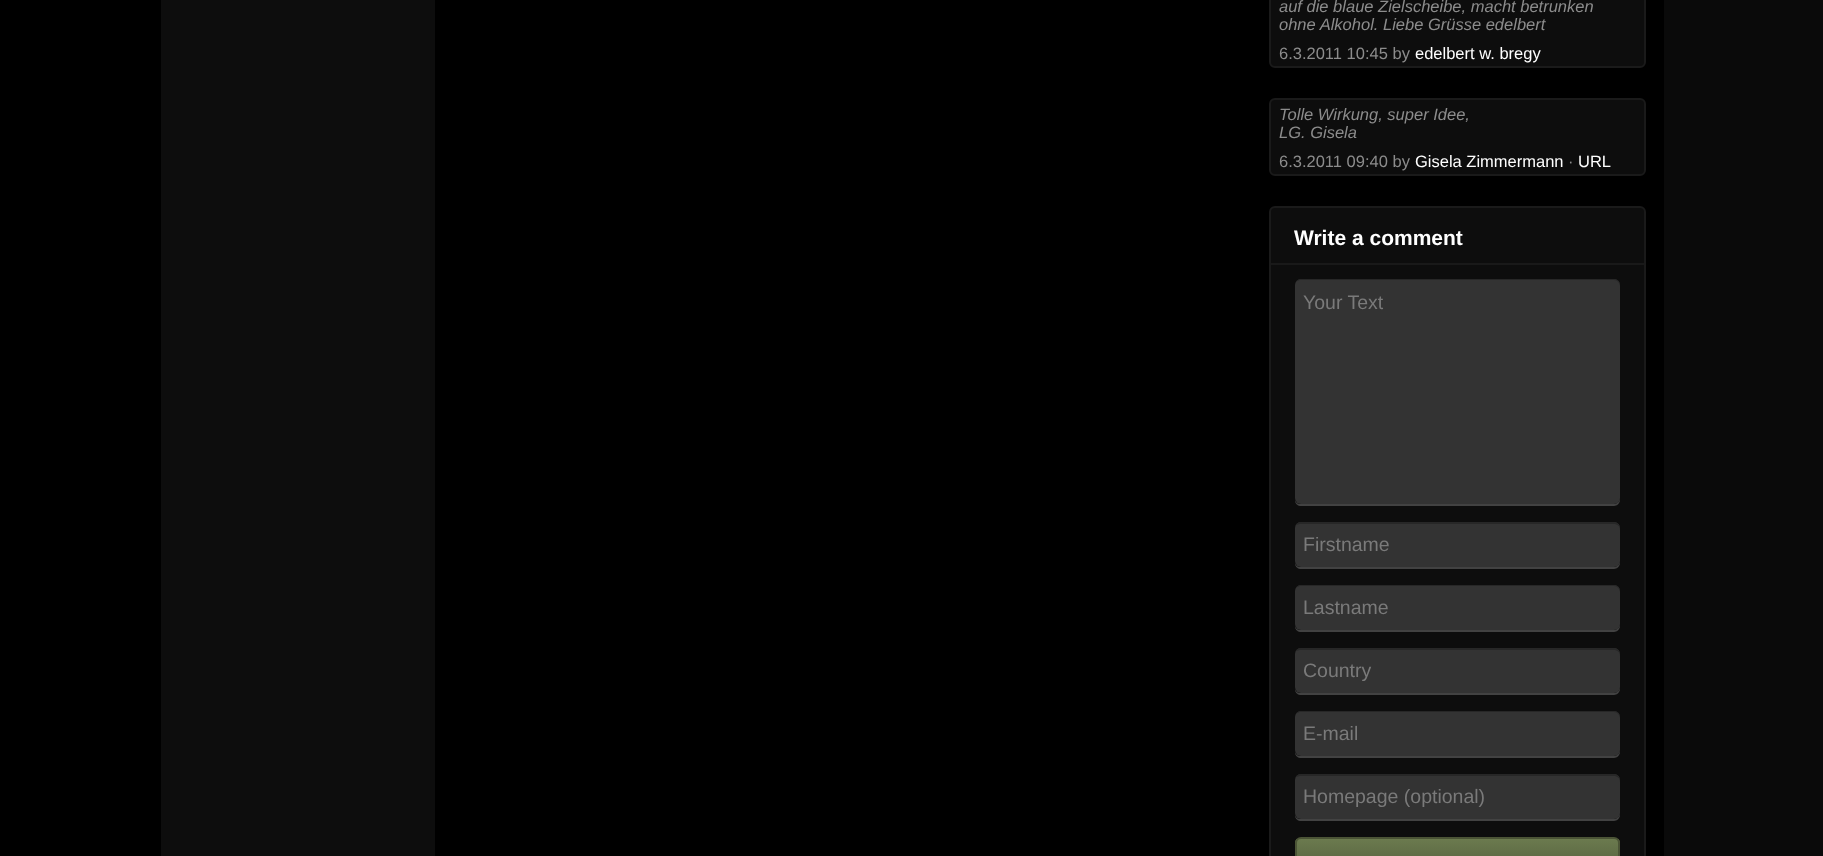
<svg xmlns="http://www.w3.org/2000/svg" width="1823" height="856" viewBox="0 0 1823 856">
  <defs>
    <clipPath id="clip1"><rect x="1295" y="837" width="325" height="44" rx="6"/></clipPath>
    <linearGradient id="g1" gradientUnits="userSpaceOnUse" x1="1457" y1="839" x2="1457" y2="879"><stop offset="0" stop-color="#6b7a4e"/><stop offset="1" stop-color="#505b3a"/></linearGradient>
  </defs>
  <rect width="100%" height="100%" fill="#000000"/>
  <rect x="1664" y="0" width="159" height="856" fill="#0a0a0a"/>
  <rect x="161" y="0" width="274" height="856" fill="#0d0d0d"/>
  <rect x="1270" y="-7" width="375" height="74" rx="5" fill="#0d0d0d" stroke="#1a1a1a" stroke-width="2"/>
  <text x="1279" y="12" font-family="Liberation Sans" font-size="16.5" font-style="italic" fill="#8c8c8c">auf die blaue Zielscheibe, macht betrunken</text>
  <text x="1279" y="30" font-family="Liberation Sans" font-size="16.5" font-style="italic" fill="#8c8c8c">ohne Alkohol. Liebe Grüsse edelbert</text>
  <text x="1279" y="59" font-family="Liberation Sans" font-size="16.5" fill="#8c8c8c">6.3.2011 10:45 by</text>
  <text x="1415" y="59" font-family="Liberation Sans" font-size="16.5" fill="#ffffff">edelbert w. bregy</text>
  <rect x="1270" y="99" width="375" height="76" rx="5" fill="#0d0d0d" stroke="#1a1a1a" stroke-width="2"/>
  <text x="1279" y="120" font-family="Liberation Sans" font-size="16.5" font-style="italic" fill="#8c8c8c">Tolle Wirkung, super Idee,</text>
  <text x="1279" y="138" font-family="Liberation Sans" font-size="16.5" font-style="italic" fill="#8c8c8c">LG. Gisela</text>
  <text x="1279" y="167" font-family="Liberation Sans" font-size="16.5" fill="#8c8c8c">6.3.2011 09:40 by</text>
  <text x="1415" y="167" font-family="Liberation Sans" font-size="16.5" fill="#ffffff">Gisela Zimmermann</text>
  <text x="1568" y="167" font-family="Liberation Sans" font-size="16.5" fill="#8c8c8c">·</text>
  <text x="1578" y="167" font-family="Liberation Sans" font-size="16.5" fill="#ffffff">URL</text>
  <rect x="1270" y="207" width="375" height="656" rx="5" fill="#0d0d0d" stroke="#1a1a1a" stroke-width="2"/>
  <text x="1294" y="245" font-family="Liberation Sans" font-size="21" font-weight="bold" fill="#ffffff">Write a comment</text>
  <rect x="1271" y="263" width="373" height="2" fill="#191919"/>
  <path d="M1295 500C1295 504 1298 506 1301 506H1614C1617 506 1620 503 1620 500V498C1620 501 1617 504 1614 504H1300C1298 504 1296 503 1295 500Z" fill="#424242"/>
  <rect x="1295" y="279" width="325" height="225" rx="6" fill="#333333"/>
  <path d="M1300 280H1614C1617 280 1620 283 1620 286V285C1620 282 1617 279 1614 279H1301C1299 279 1297 280 1296 282C1297 281 1299 280 1300 280Z" fill="#272727"/>
  <text x="1303" y="309" font-family="Liberation Sans" font-size="19.5" fill="#7a7a7a">Your Text</text>
  <path d="M1295 563C1295 567 1298 569 1301 569H1614C1617 569 1620 566 1620 563V561C1620 564 1617 567 1614 567H1300C1298 567 1296 566 1295 563Z" fill="#424242"/>
  <rect x="1295" y="522" width="325" height="45" rx="6" fill="#333333"/>
  <path d="M1300 524H1614C1617 524 1620 526 1620 530V528C1620 525 1617 522 1614 522H1301C1298 522 1296 524 1295 526C1296 525 1298 524 1300 524Z" fill="#272727"/>
  <text x="1303" y="551" font-family="Liberation Sans" font-size="19.5" fill="#7a7a7a">Firstname</text>
  <path d="M1295 626C1295 630 1298 632 1301 632H1614C1617 632 1620 629 1620 626V624C1620 627 1617 630 1614 630H1300C1298 630 1296 629 1295 626Z" fill="#424242"/>
  <rect x="1295" y="585" width="325" height="45" rx="6" fill="#333333"/>
  <path d="M1300 586H1614C1617 586 1620 589 1620 592V591C1620 588 1617 585 1614 585H1301C1299 585 1297 586 1296 588C1297 587 1299 586 1300 586Z" fill="#272727"/>
  <text x="1303" y="614" font-family="Liberation Sans" font-size="19.5" fill="#7a7a7a">Lastname</text>
  <path d="M1295 689C1295 693 1298 695 1301 695H1614C1617 695 1620 692 1620 689V687C1620 690 1617 693 1614 693H1300C1298 693 1296 692 1295 689Z" fill="#424242"/>
  <rect x="1295" y="648" width="325" height="45" rx="6" fill="#333333"/>
  <path d="M1300 650H1614C1617 650 1620 652 1620 656V654C1620 651 1617 648 1614 648H1301C1298 648 1296 650 1295 652C1296 651 1298 650 1300 650Z" fill="#272727"/>
  <text x="1303" y="677" font-family="Liberation Sans" font-size="19.5" fill="#7a7a7a">Country</text>
  <path d="M1295 752C1295 756 1298 758 1301 758H1614C1617 758 1620 755 1620 752V750C1620 753 1617 756 1614 756H1300C1298 756 1296 755 1295 752Z" fill="#424242"/>
  <rect x="1295" y="711" width="325" height="45" rx="6" fill="#333333"/>
  <path d="M1300 712H1614C1617 712 1620 715 1620 718V717C1620 714 1617 711 1614 711H1301C1299 711 1297 712 1296 714C1297 713 1299 712 1300 712Z" fill="#272727"/>
  <text x="1303" y="740" font-family="Liberation Sans" font-size="19.5" fill="#7a7a7a">E-mail</text>
  <path d="M1295 815C1295 819 1298 821 1301 821H1614C1617 821 1620 818 1620 815V813C1620 816 1617 819 1614 819H1300C1298 819 1296 818 1295 815Z" fill="#424242"/>
  <rect x="1295" y="774" width="325" height="45" rx="6" fill="#333333"/>
  <path d="M1300 776H1614C1617 776 1620 778 1620 782V780C1620 777 1617 774 1614 774H1301C1298 774 1296 776 1295 778C1296 777 1298 776 1300 776Z" fill="#272727"/>
  <text x="1303" y="803" font-family="Liberation Sans" font-size="19.5" fill="#7a7a7a">Homepage (optional)</text>
  <g clip-path="url(#clip1)">
    <rect x="1295" y="839" width="325" height="17" fill="url(#g1)"/>
  </g>
  <rect x="1296" y="838" width="323" height="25" rx="5" fill="none" stroke="#4b5436" stroke-width="2"/>
</svg>
